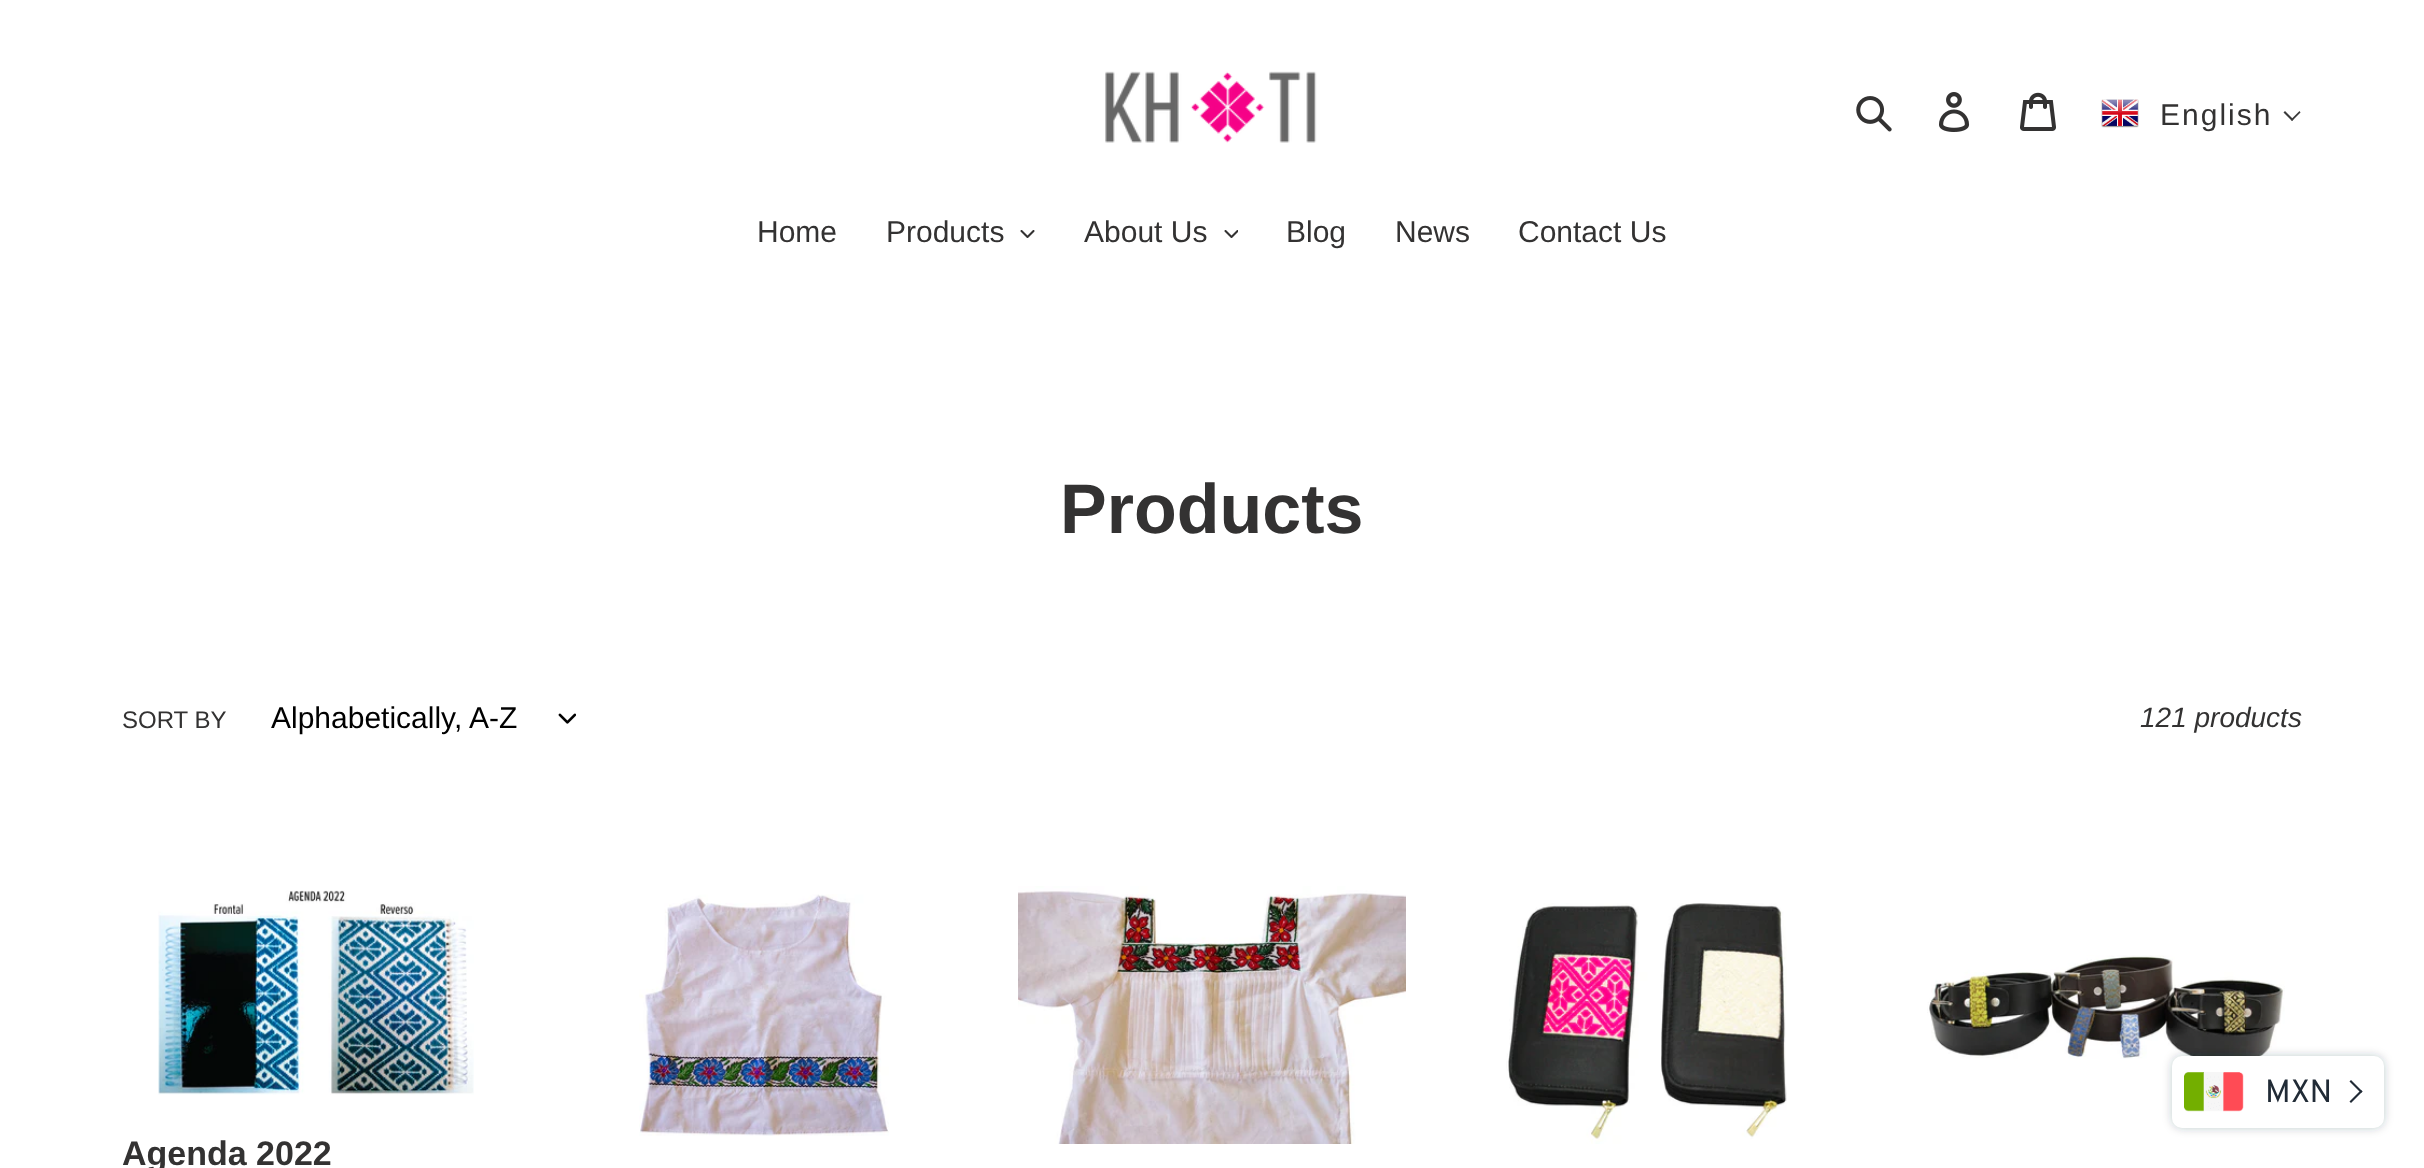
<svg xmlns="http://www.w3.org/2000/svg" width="2424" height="1168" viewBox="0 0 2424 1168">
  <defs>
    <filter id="blur1" x="-50%" y="-200%" width="200%" height="500%"><feGaussianBlur stdDeviation="5"/></filter>
  </defs>
  <rect width="100%" height="100%" fill="#ffffff"/>
  <image x="1105" y="71" width="212" height="72" href="img1.png"/>
  <image x="1856" y="96" width="36" height="36" href="img2.png"/>
  <image x="1939" y="92" width="31" height="40" href="img3.png"/>
  <image x="2020" y="92" width="36" height="39" href="img4.png"/>
  <image x="2101" y="99" width="38" height="29" href="img5.png"/>
  <text x="2160" y="125" font-family="Liberation Sans" font-size="30" letter-spacing="2" fill="#333232">English</text>
  <path d="M2299.5 111L2300.5 112.5L2292 121L2291 119.5Z" fill="#3a3a3a"/>
  <path d="M2285 111L2293.5 119.5L2292 121L2283.5 112.5Z" fill="#3a3a3a"/>
  <text x="757" y="242" font-family="Liberation Sans" font-size="30" fill="#333232">Home</text>
  <text x="886" y="242" font-family="Liberation Sans" font-size="30" fill="#333232">Products</text>
  <image x="1020" y="230" width="15" height="8" href="img6.png"/>
  <text x="1084" y="242" font-family="Liberation Sans" font-size="30" fill="#333232">About Us</text>
  <image x="1224" y="230" width="14" height="8" href="img7.png"/>
  <text x="1286" y="242" font-family="Liberation Sans" font-size="30" fill="#333232">Blog</text>
  <text x="1395" y="242" font-family="Liberation Sans" font-size="30" fill="#333232">News</text>
  <text x="1518" y="242" font-family="Liberation Sans" font-size="30" fill="#333232">Contact Us</text>
  <text x="1060" y="533" font-family="Liberation Sans" font-size="70" font-weight="bold" fill="#333232">Products</text>
  <text x="122" y="728" font-family="Liberation Sans" font-size="24" fill="#333232">SORT BY</text>
  <text x="271" y="728" font-family="Liberation Sans" font-size="30" fill="#000000">Alphabetically, A-Z</text>
  <image x="558" y="713" width="18" height="11" href="img8.png"/>
  <text x="2140" y="727" font-family="Liberation Sans" font-size="28" font-style="italic" fill="#333232">121 products</text>
  <image x="639" y="894" width="250" height="242" href="img9.png"/>
  <image x="1018" y="886" width="388" height="258" href="img10.png"/>
  <image x="1506" y="903" width="281" height="241" href="img11.png"/>
  <image x="1927" y="955" width="358" height="110" href="img12.png"/>
  <image x="158" y="890" width="316" height="205" href="img13.png"/>
  <text x="122" y="1165" font-family="Liberation Sans" font-size="34" font-weight="bold" fill="#333232">Agenda 2022</text>
  <rect x="2172" y="1056" width="212" height="72" rx="10" fill="#212b36" fill-opacity="0.25" filter="url(#blur1)"/>
  <rect x="2172" y="1056" width="212" height="72" rx="10" fill="#ffffff"/>
  <image x="2184" y="1072" width="60" height="40" href="img14.png"/>
  <text x="2265" y="1102" font-family="Overpass" font-size="32" fill="#212b36">MXN</text>
  <path d="M2349.5 1081.5L2351 1080L2362.5 1091.5L2361 1093Z" fill="#212b36"/>
  <path d="M2349.5 1101.5L2361 1090L2362.5 1091.5L2351 1103Z" fill="#212b36"/>
</svg>
